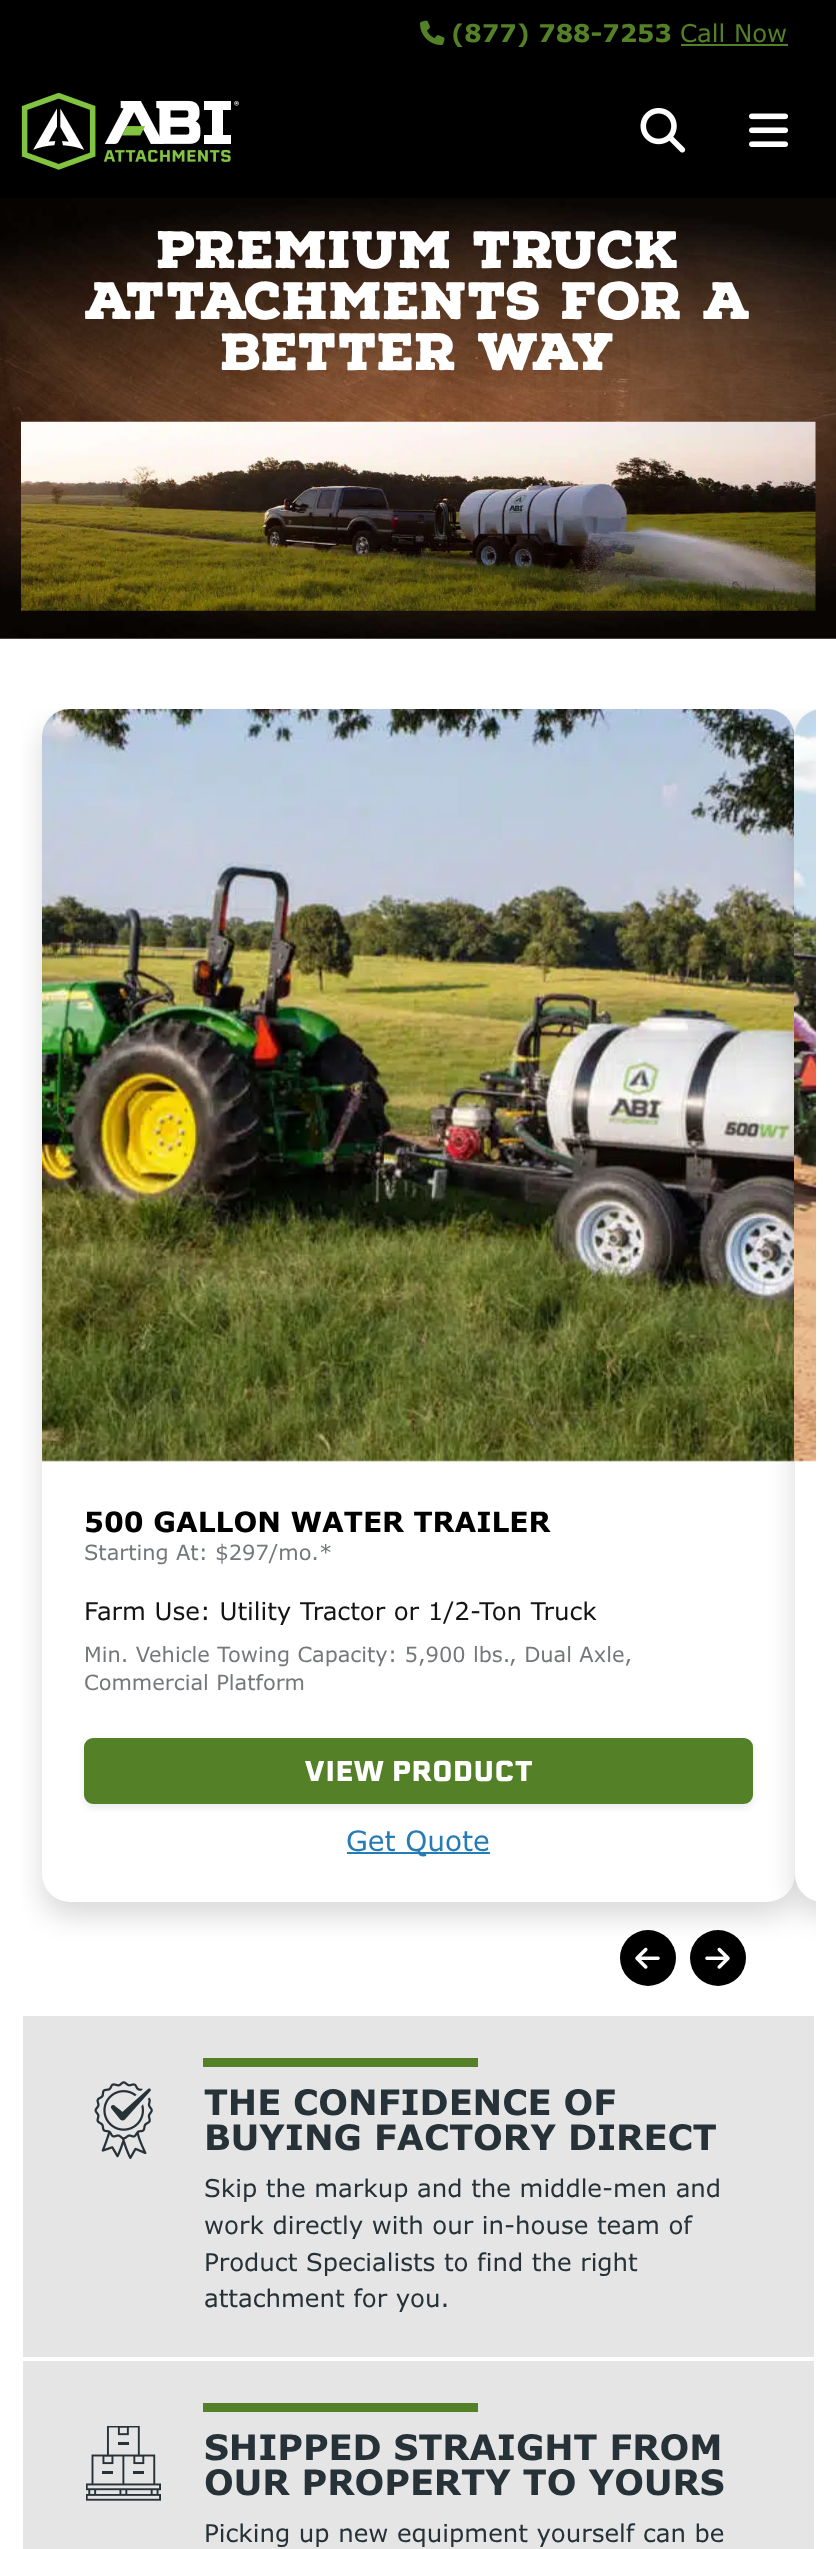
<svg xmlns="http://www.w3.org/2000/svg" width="836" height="2549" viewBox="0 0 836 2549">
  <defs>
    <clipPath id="clip1"><rect x="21" y="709" width="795" height="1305"/></clipPath>
    <filter id="blur1" x="-50%" y="-200%" width="200%" height="500%"><feGaussianBlur stdDeviation="14"/></filter>
    <filter id="blur2" x="-50%" y="-200%" width="200%" height="500%"><feGaussianBlur stdDeviation="3.5"/></filter>
  </defs>
  <rect width="100%" height="100%" fill="#ffffff"/>
  <rect x="0" y="0" width="836" height="198" fill="#000000"/>
  <image x="420" y="20" width="25" height="26" href="img1.png"/>
  <text x="451" y="42" font-family="Verdana" font-size="24.5" font-weight="bold" fill="#548028">(877) 788-7253</text>
  <text x="680" y="42" font-family="Verdana" font-size="24.5" fill="#548028">Call Now</text>
  <rect x="681" y="44" width="107" height="2" fill="#548028"/>
  <image x="21" y="93" width="218" height="77" href="img2.png"/>
  <image x="640" y="107" width="46" height="46" href="img3.png"/>
  <image x="749" y="113" width="39" height="34" href="img4.png"/>
  <image x="0" y="198" width="836" height="441" href="img5.png"/>
  <text x="157" y="268" font-family="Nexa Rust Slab" font-size="51" font-weight="900" fill="#ffffff">PREMIUM TRUCK</text>
  <text x="85" y="319" font-family="Nexa Rust Slab" font-size="51" font-weight="900" fill="#ffffff">ATTACHMENTS FOR A</text>
  <text x="221" y="370" font-family="Nexa Rust Slab" font-size="51" font-weight="900" fill="#ffffff">BETTER WAY</text>
  <image x="21" y="421" width="795" height="190" href="img6.png"/>
  <g clip-path="url(#clip1)">
    <rect x="42" y="723" width="753" height="1193" rx="28" fill="#000000" fill-opacity="0.15" filter="url(#blur1)"/>
  </g>
  <rect x="42" y="709" width="753" height="1193" rx="28" fill="#ffffff"/>
  <image x="42" y="709" width="753" height="753" href="img7.png"/>
  <text x="84" y="1532" font-family="Verdana" font-size="28" font-weight="bold" fill="#000000">500 GALLON WATER TRAILER</text>
  <text x="84" y="1560" font-family="Verdana" font-size="21" fill="#75787b">Starting At: $297/mo.*</text>
  <text x="84" y="1620" font-family="Verdana" font-size="24.5" fill="#141414">Farm Use: Utility Tractor or 1/2-Ton Truck</text>
  <text x="84" y="1662" font-family="Verdana" font-size="21" fill="#75787b">Min. Vehicle Towing Capacity: 5,900 lbs., Dual Axle,</text>
  <text x="84" y="1690" font-family="Verdana" font-size="21" fill="#75787b">Commercial Platform</text>
  <rect x="84" y="1741" width="669" height="67" rx="9" fill="#000000" fill-opacity="0.08" filter="url(#blur2)"/>
  <rect x="85" y="1739" width="667" height="64" rx="8" fill="#548028" stroke="#548028" stroke-width="2"/>
  <text x="304" y="1781" font-family="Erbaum" font-size="28" font-weight="bold" fill="#ffffff">VIEW PRODUCT</text>
  <rect x="347" y="1852" width="143" height="2" fill="#267cb4"/>
  <text x="346" y="1851" font-family="Verdana" font-size="28" fill="#267cb4">Get Quote</text>
  <g clip-path="url(#clip1)">
    <rect x="795" y="723" width="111" height="1193" rx="28" fill="#000000" fill-opacity="0.15" filter="url(#blur1)"/>
  </g>
  <path d="M823 709H816V1902H823C807.5 1902 795 1889.5 795 1874V737C795 721.5 807.5 709 823 709Z" fill="#ffffff"/>
  <image x="794" y="709" width="22" height="753" href="img8.png"/>
  <circle cx="648" cy="1958" r="28" fill="#000000"/>
  <image x="635" y="1947" width="25" height="22" href="img9.png"/>
  <circle cx="718" cy="1958" r="28" fill="#000000"/>
  <image x="705" y="1947" width="25" height="22" href="img10.png"/>
  <rect x="23" y="2016" width="791" height="533" fill="#e5e5e5"/>
  <rect x="22" y="2015" width="793" height="343" fill="none" stroke="#ffffff" stroke-width="2"/>
  <image x="94" y="2081" width="59" height="78" href="img11.png"/>
  <rect x="203" y="2058" width="275" height="9" fill="#548028"/>
  <text x="204" y="2115" font-family="Verdana" font-size="35" font-weight="bold" fill="#263238">THE CONFIDENCE OF</text>
  <text x="204" y="2150" font-family="Verdana" font-size="35" font-weight="bold" fill="#263238">BUYING FACTORY DIRECT</text>
  <text x="204" y="2197" font-family="Verdana" font-size="24.5" fill="#263238">Skip the markup and the middle-men and</text>
  <text x="204" y="2234" font-family="Verdana" font-size="24.5" fill="#263238">work directly with our in-house team of</text>
  <text x="204" y="2271" font-family="Verdana" font-size="24.5" fill="#263238">Product Specialists to find the right</text>
  <text x="204" y="2307" font-family="Verdana" font-size="24.5" fill="#263238">attachment for you.</text>
  <rect x="22" y="2360" width="793" height="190" fill="none" stroke="#ffffff" stroke-width="2"/>
  <image x="86" y="2426" width="75" height="75" href="img12.png"/>
  <rect x="203" y="2403" width="275" height="9" fill="#548028"/>
  <text x="204" y="2460" font-family="Verdana" font-size="35" font-weight="bold" fill="#263238">SHIPPED STRAIGHT FROM</text>
  <text x="204" y="2495" font-family="Verdana" font-size="35" font-weight="bold" fill="#263238">OUR PROPERTY TO YOURS</text>
  <text x="204" y="2542" font-family="Verdana" font-size="24.5" fill="#263238">Picking up new equipment yourself can be</text>
</svg>
